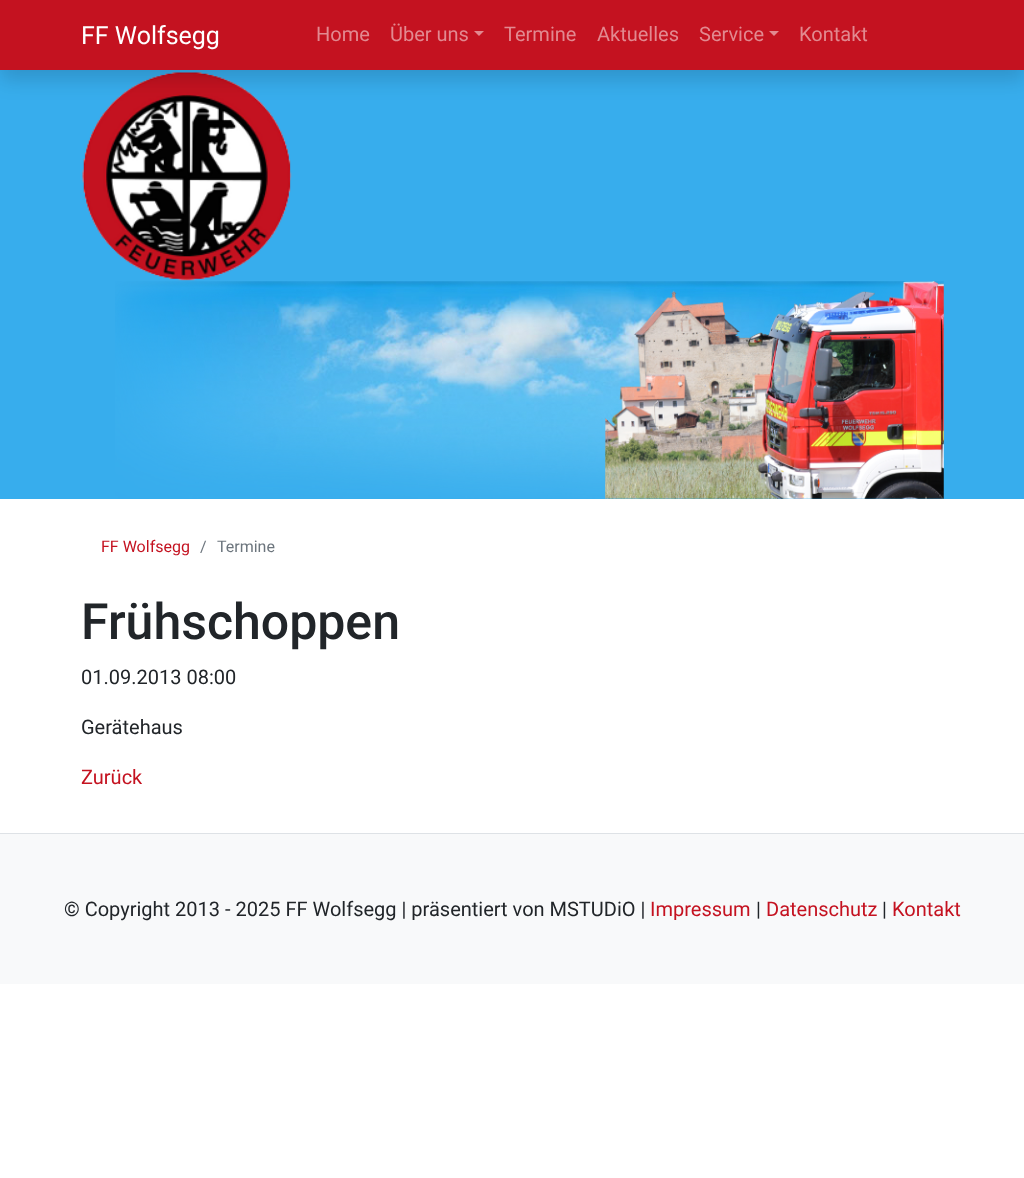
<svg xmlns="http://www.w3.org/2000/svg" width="1024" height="1178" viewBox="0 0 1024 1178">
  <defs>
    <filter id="blur1" x="-50%" y="-200%" width="200%" height="500%"><feGaussianBlur stdDeviation="10"/></filter>
  </defs>
  <rect width="100%" height="100%" fill="#ffffff"/>
  <rect x="0" y="70" width="1024" height="429" fill="#37aded"/>
  <image x="82" y="72" width="210" height="209" href="img1.png"/>
  <rect x="0" y="10" width="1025" height="70" fill="#000000" fill-opacity="0.15" filter="url(#blur1)"/>
  <rect x="0" y="0" width="1024" height="70" fill="#c41220"/>
  <text x="81" y="44" font-family="Roboto" font-size="25" fill="#ffffff">FF Wolfsegg</text>
  <text x="316" y="41" font-family="Roboto" font-size="20" fill="#e28990">Home</text>
  <text x="390" y="41" font-family="Roboto" font-size="20" fill="#e28990">Über uns</text>
  <path d="M474 31H484L479 36Z" fill="#e28990"/>
  <text x="504" y="41" font-family="Roboto" font-size="20" fill="#e28990">Termine</text>
  <text x="597" y="41" font-family="Roboto" font-size="20" fill="#e28990">Aktuelles</text>
  <text x="699" y="41" font-family="Roboto" font-size="20" fill="#e28990">Service</text>
  <path d="M769 31H779L774 36Z" fill="#e28990"/>
  <text x="799" y="41" font-family="Roboto" font-size="20" fill="#e28990">Kontakt</text>
  <image x="115" y="281" width="829" height="218" href="img2.png"/>
  <text x="101" y="552" font-family="Roboto" font-size="16" fill="#c41220">FF Wolfsegg</text>
  <text x="200" y="552" font-family="Roboto" font-size="16" fill="#6c757d">/</text>
  <text x="217" y="552" font-family="Roboto" font-size="16" fill="#6c757d">Termine</text>
  <text x="81" y="639" font-family="Roboto" font-size="50" font-weight="500" fill="#212529">Frühschoppen</text>
  <text x="81" y="684" font-family="Roboto" font-size="20" fill="#212529">01.09.2013 08:00</text>
  <text x="81" y="734" font-family="Roboto" font-size="20" fill="#212529">Gerätehaus</text>
  <text x="81" y="784" font-family="Roboto" font-size="20" fill="#c41220">Zurück</text>
  <rect x="0" y="834" width="1024" height="150" fill="#f8f9fa"/>
  <rect x="0" y="833" width="1024" height="1" fill="#dee2e6"/>
  <text x="64" y="916" font-family="Roboto" font-size="20" fill="#212529">© Copyright 2013 - 2025 FF Wolfsegg | präsentiert von MSTUDiO |</text>
  <text x="650" y="916" font-family="Roboto" font-size="20" fill="#c41220">Impressum</text>
  <text x="756" y="916" font-family="Roboto" font-size="20" fill="#212529">|</text>
  <text x="766" y="916" font-family="Roboto" font-size="20" fill="#c41220">Datenschutz</text>
  <text x="882" y="916" font-family="Roboto" font-size="20" fill="#212529">|</text>
  <text x="892" y="916" font-family="Roboto" font-size="20" fill="#c41220">Kontakt</text>
</svg>
